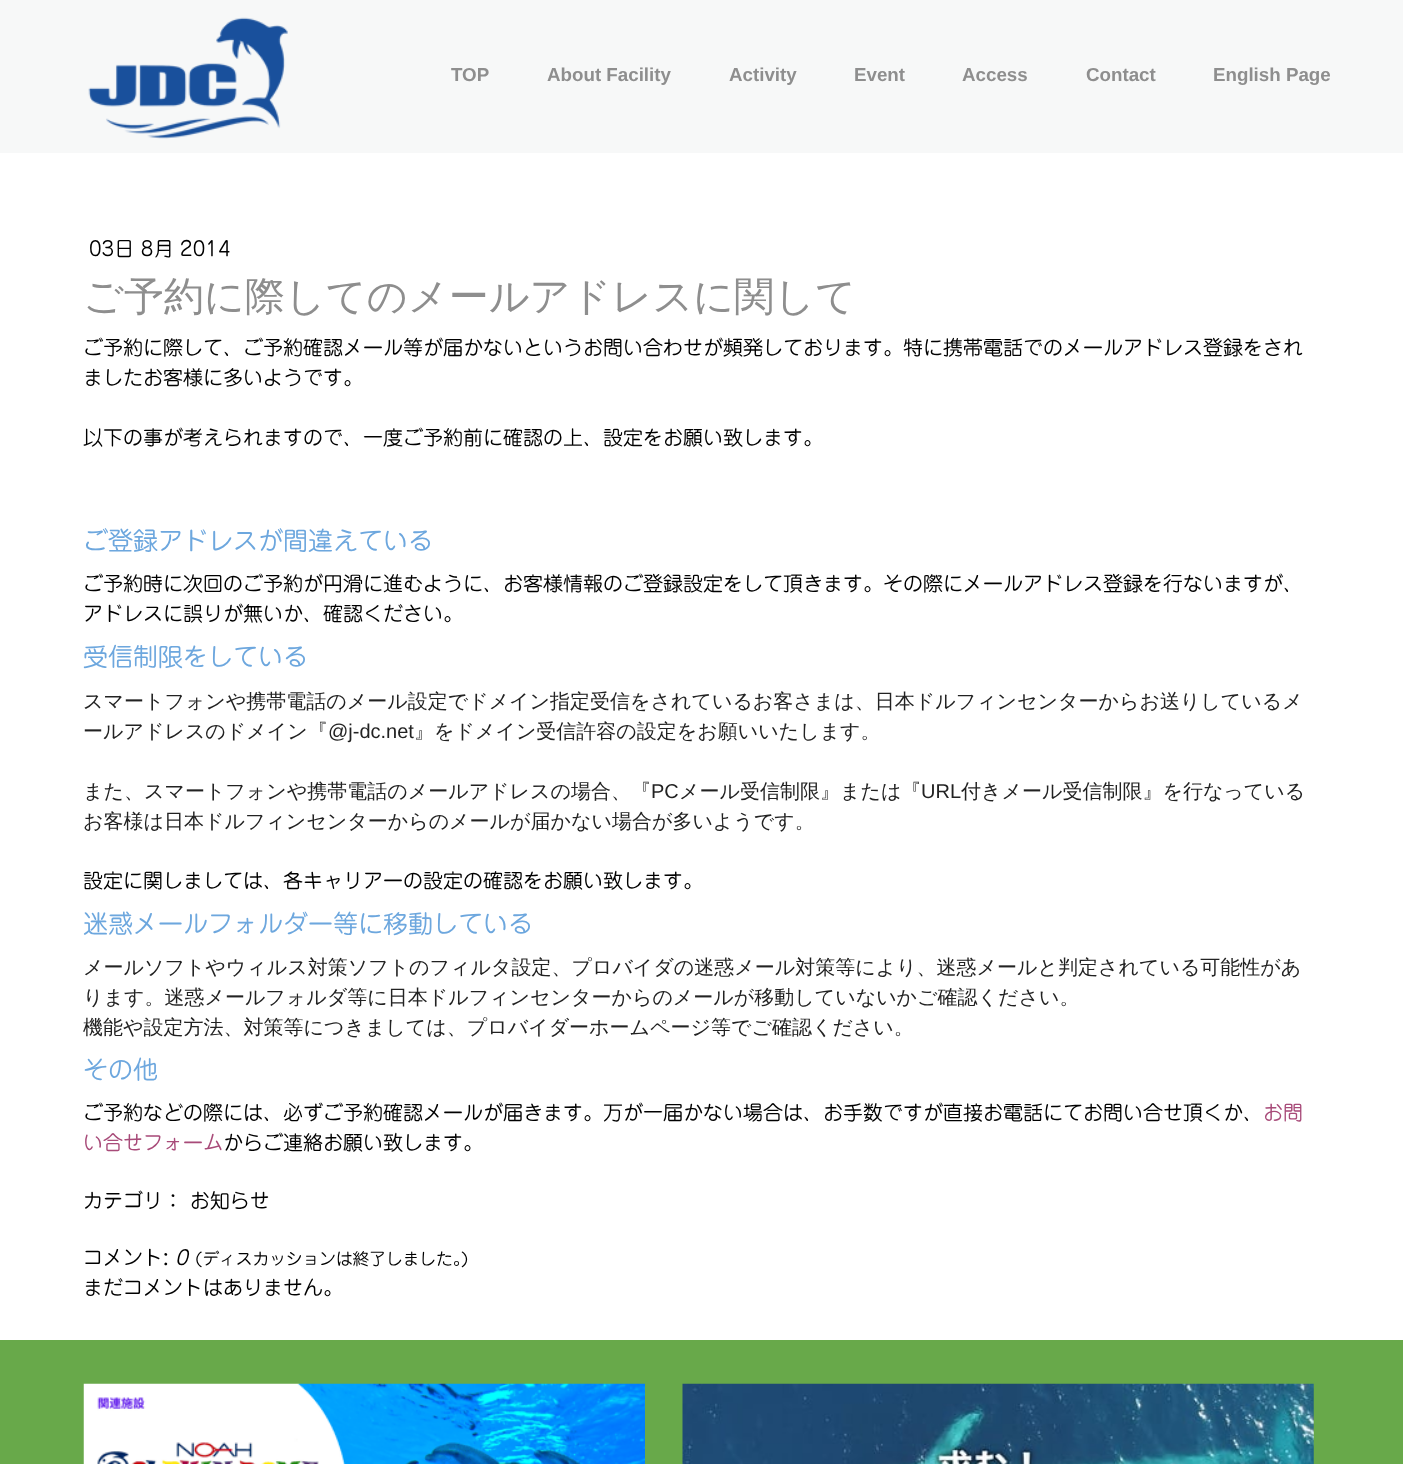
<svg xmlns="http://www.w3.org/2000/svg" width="1403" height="1464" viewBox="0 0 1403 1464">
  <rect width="100%" height="100%" fill="#ffffff"/>
  <rect x="0" y="0" width="1403" height="153" fill="#f7f8f8"/>
  <image x="88" y="17" width="200" height="122" href="img1.png"/>
  <text x="451" y="81" font-family="Liberation Sans" font-size="18.75" font-weight="bold" fill="#8e8e8e">TOP</text>
  <text x="547" y="81" font-family="Liberation Sans" font-size="18.75" font-weight="bold" fill="#8e8e8e">About Facility</text>
  <text x="729" y="81" font-family="Liberation Sans" font-size="18.75" font-weight="bold" fill="#8e8e8e">Activity</text>
  <text x="854" y="81" font-family="Liberation Sans" font-size="18.75" font-weight="bold" fill="#8e8e8e">Event</text>
  <text x="962" y="81" font-family="Liberation Sans" font-size="18.75" font-weight="bold" fill="#8e8e8e">Access</text>
  <text x="1086" y="81" font-family="Liberation Sans" font-size="18.75" font-weight="bold" fill="#8e8e8e">Contact</text>
  <text x="1213" y="81" font-family="Liberation Sans" font-size="18.75" font-weight="bold" fill="#8e8e8e">English Page</text>
  <text x="89" y="256" font-family="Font" font-size="20" fill="#000000">03日 8月 2014</text>
  <text x="83" y="310" font-family="WenQuanYi Zen Hei" font-size="40" font-weight="500" fill="#8e8e8e">ご予約に際してのメールアドレスに関して</text>
  <text x="83" y="355" font-family="Font" font-size="20" fill="#000000">ご予約に際して、ご予約確認メール等が届かないというお問い合わせが頻発しております。特に携帯電話でのメールアドレス登録をされ</text>
  <text x="83" y="385" font-family="Font" font-size="20" fill="#000000">ましたお客様に多いようです。</text>
  <text x="83" y="445" font-family="Font" font-size="20" fill="#000000">以下の事が考えられますので、一度ご予約前に確認の上、設定をお願い致します。</text>
  <text x="83" y="550" font-family="Font" font-size="25" fill="#6da7de">ご登録アドレスが間違えている</text>
  <text x="83" y="591" font-family="Font" font-size="20" fill="#000000">ご予約時に次回のご予約が円滑に進むように、お客様情報のご登録設定をして頂きます。その際にメールアドレス登録を行ないますが、</text>
  <text x="83" y="621" font-family="Font" font-size="20" fill="#000000">アドレスに誤りが無いか、確認ください。</text>
  <text x="83" y="666" font-family="Font" font-size="25" fill="#6da7de">受信制限をしている</text>
  <text x="83" y="708" font-family="WenQuanYi Zen Hei" font-size="20" font-weight="500" fill="#222222">スマートフォンや携帯電話のメール設定でドメイン指定受信をされているお客さまは、日本ドルフィンセンターからお送りしているメ</text>
  <text x="83" y="738" font-family="WenQuanYi Zen Hei" font-size="20" font-weight="500" fill="#222222">ールアドレスのドメイン『</text>
  <text x="328" y="738" font-family="Liberation Sans" font-size="20" fill="#222222">@j-dc.net</text>
  <text x="414" y="738" font-family="WenQuanYi Zen Hei" font-size="20" font-weight="500" fill="#222222">』をドメイン受信許容の設定をお願いいたします。</text>
  <text x="83" y="798" font-family="WenQuanYi Zen Hei" font-size="20" font-weight="500" fill="#222222">また、スマートフォンや携帯電話のメールアドレスの場合、『</text>
  <text x="651" y="798" font-family="Liberation Sans" font-size="20" fill="#222222">PC</text>
  <text x="679" y="798" font-family="WenQuanYi Zen Hei" font-size="20" font-weight="500" fill="#222222">メール受信制限』または『</text>
  <text x="921" y="798" font-family="Liberation Sans" font-size="20" fill="#222222">URL</text>
  <text x="961" y="798" font-family="WenQuanYi Zen Hei" font-size="20" font-weight="500" fill="#222222">付きメール受信制限』を行なっている</text>
  <text x="83" y="828" font-family="WenQuanYi Zen Hei" font-size="20" font-weight="500" fill="#222222">お客様は日本ドルフィンセンターからのメールが届かない場合が多いようです。</text>
  <text x="83" y="888" font-family="Font" font-size="20" fill="#000000">設定に関しましては、各キャリアーの設定の確認をお願い致します。</text>
  <text x="83" y="933" font-family="Font" font-size="25" fill="#6da7de">迷惑メールフォルダー等に移動している</text>
  <text x="83" y="974" font-family="WenQuanYi Zen Hei" font-size="20" font-weight="500" fill="#222222">メールソフトやウィルス対策ソフトのフィルタ設定、プロバイダの迷惑メール対策等により、迷惑メールと判定されている可能性があ</text>
  <text x="83" y="1004" font-family="WenQuanYi Zen Hei" font-size="20" font-weight="500" fill="#222222">ります。迷惑メールフォルダ等に日本ドルフィンセンターからのメールが移動していないかご確認ください。</text>
  <text x="83" y="1034" font-family="WenQuanYi Zen Hei" font-size="20" font-weight="500" fill="#222222">機能や設定方法、対策等につきましては、プロバイダーホームページ等でご確認ください。</text>
  <text x="83" y="1079" font-family="Font" font-size="25" fill="#6da7de">その他</text>
  <text x="83" y="1120" font-family="Font" font-size="20" fill="#000000">ご予約などの際には、必ずご予約確認メールが届きます。万が一届かない場合は、お手数ですが直接お電話にてお問い合せ頂くか、</text>
  <text x="1263" y="1120" font-family="Font" font-size="20" fill="#a84b79">お問</text>
  <text x="83" y="1150" font-family="Font" font-size="20" fill="#a84b79">い合せフォーム</text>
  <text x="223" y="1150" font-family="Font" font-size="20" fill="#000000">からご連絡お願い致します。</text>
  <text x="83" y="1208" font-family="Font" font-size="20" fill="#000000">カテゴリ： お知らせ</text>
  <text x="83" y="1265" font-family="Font" font-size="20" fill="#000000">コメント:</text>
  <text x="175" y="1265" font-family="Font" font-size="20" font-style="italic" fill="#000000">0</text>
  <text x="195" y="1265" font-family="Font" font-size="16.7" fill="#000000">(ディスカッションは終了しました。)</text>
  <text x="83" y="1295" font-family="Font" font-size="20" fill="#000000">まだコメントはありません。</text>
  <rect x="0" y="1340" width="1403" height="124" fill="#68a94a"/>
  <image x="83" y="1383" width="562" height="81" href="img2.png"/>
  <image x="682" y="1383" width="632" height="81" href="img3.png"/>
</svg>
